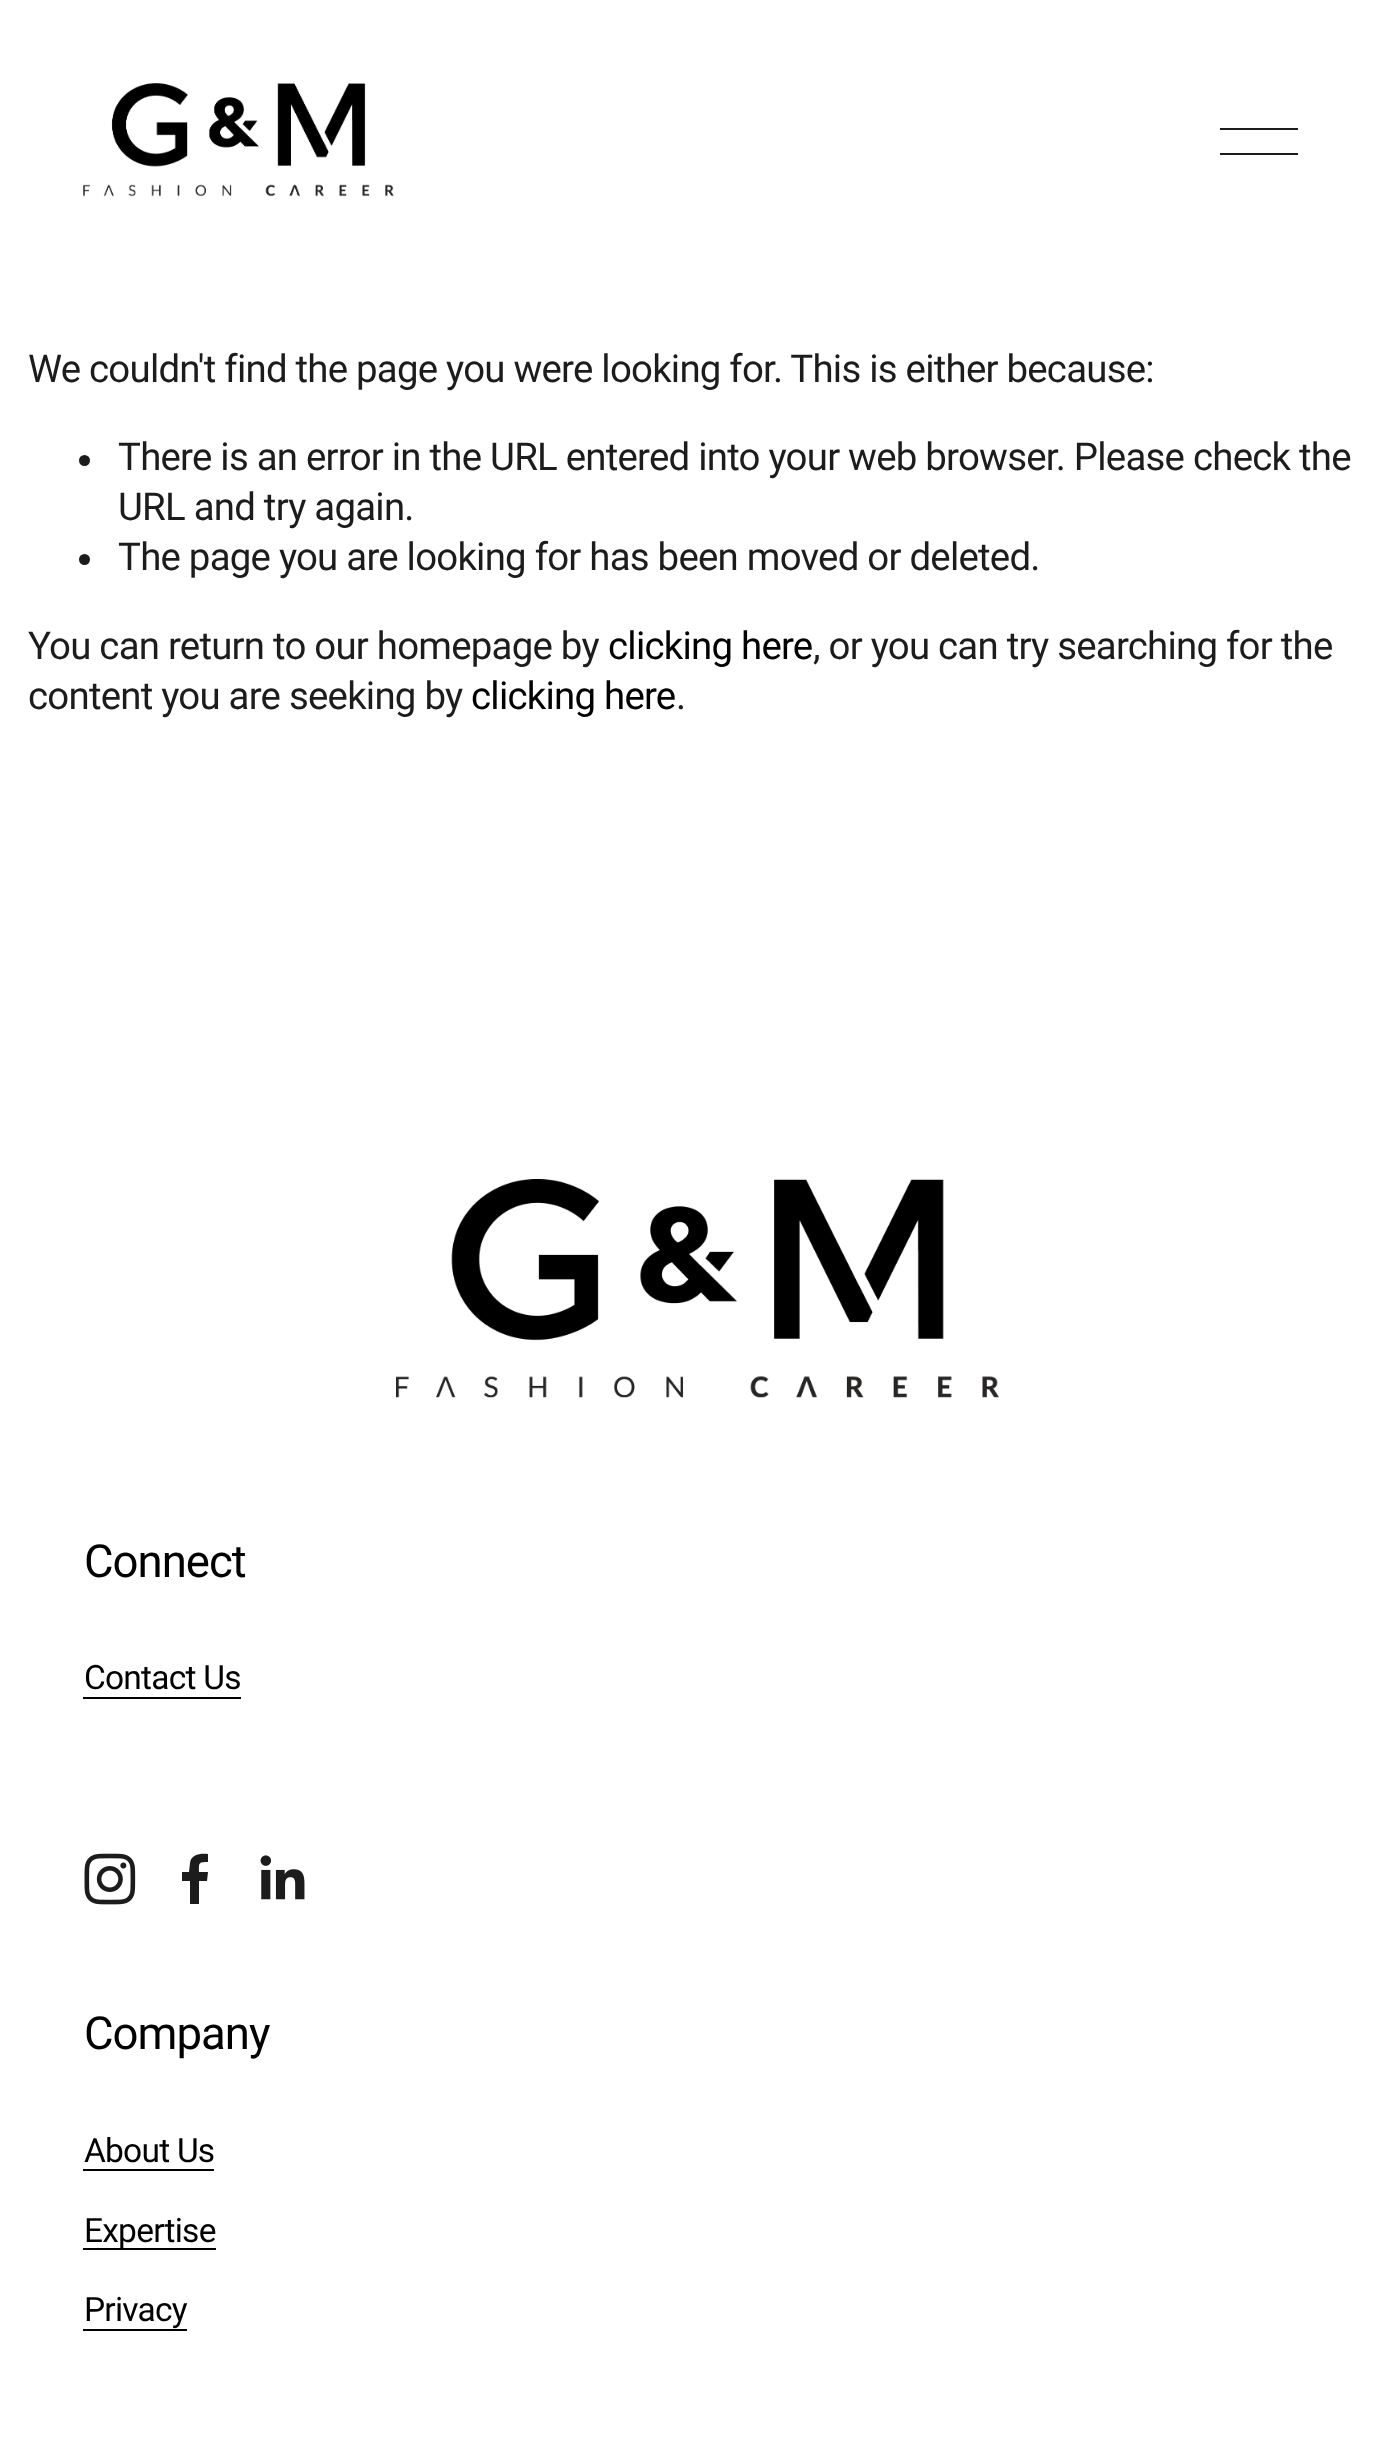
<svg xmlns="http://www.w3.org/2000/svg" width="1394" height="2438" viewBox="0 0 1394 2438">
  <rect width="100%" height="100%" fill="#ffffff"/>
  <image x="83" y="83" width="311" height="114" href="img1.png"/>
  <rect x="1220" y="128" width="78" height="2" fill="#1c1c1c"/>
  <rect x="1220" y="153" width="78" height="2" fill="#1c1c1c"/>
  <text x="28" y="382" font-family="Roboto" font-size="38.4" letter-spacing="-0.77" fill="#1c1c1c">We couldn't find the page you were looking for. This is either because:</text>
  <circle cx="84.5" cy="460.5" r="5.5" fill="#1c1c1c"/>
  <text x="118" y="470" font-family="Roboto" font-size="38.4" letter-spacing="-0.77" fill="#1c1c1c">There is an error in the URL entered into your web browser. Please check the</text>
  <text x="118" y="520" font-family="Roboto" font-size="38.4" letter-spacing="-0.77" fill="#1c1c1c">URL and try again.</text>
  <circle cx="84.5" cy="559.5" r="5.5" fill="#1c1c1c"/>
  <text x="118" y="570" font-family="Roboto" font-size="38.4" letter-spacing="-0.77" fill="#1c1c1c">The page you are looking for has been moved or deleted.</text>
  <text x="28" y="659" font-family="Roboto" font-size="38.4" letter-spacing="-0.77" fill="#1c1c1c">You can return to our homepage by</text>
  <text x="608" y="659" font-family="Roboto" font-size="38.4" letter-spacing="-0.77" fill="#000000">clicking here</text>
  <text x="813" y="659" font-family="Roboto" font-size="38.4" letter-spacing="-0.77" fill="#1c1c1c">, or you can try searching for the</text>
  <text x="28" y="709" font-family="Roboto" font-size="38.4" letter-spacing="-0.77" fill="#1c1c1c">content you are seeking by</text>
  <text x="471" y="709" font-family="Roboto" font-size="38.4" letter-spacing="-0.77" fill="#000000">clicking here</text>
  <text x="676" y="709" font-family="Roboto" font-size="38.4" letter-spacing="-0.77" fill="#1c1c1c">.</text>
  <image x="396" y="1179" width="603" height="219" href="img2.png"/>
  <text x="84" y="1577" font-family="Roboto" font-size="45.5" letter-spacing="-1" fill="#000000">Connect</text>
  <text x="84" y="1689" font-family="Roboto" font-size="33.5" letter-spacing="-0.77" fill="#000000">Contact Us</text>
  <rect x="83" y="1697" width="158" height="2" fill="#000000"/>
  <image x="84" y="1853" width="52" height="52" href="img3.png"/>
  <path d="M199 1904V1881H207L208 1872H199C199 1863 198 1862 208 1862V1854C201 1853 191 1854 190 1863L189 1872H182V1881H190V1904Z" fill="#1c1c1c"/>
  <image x="260" y="1855" width="45" height="45" href="img4.png"/>
  <text x="84" y="2049" font-family="Roboto" font-size="45.5" letter-spacing="-1" fill="#000000">Company</text>
  <text x="84" y="2162" font-family="Roboto" font-size="33.5" letter-spacing="-0.77" fill="#000000">About Us</text>
  <rect x="83" y="2169" width="131" height="2" fill="#000000"/>
  <rect x="83" y="2248" width="133" height="2" fill="#000000"/>
  <text x="84" y="2242" font-family="Roboto" font-size="33.5" letter-spacing="-0.77" fill="#000000">Expertise</text>
  <text x="84" y="2321" font-family="Roboto" font-size="33.5" letter-spacing="-0.77" fill="#000000">Privacy</text>
  <rect x="83" y="2329" width="104" height="2" fill="#000000"/>
</svg>
